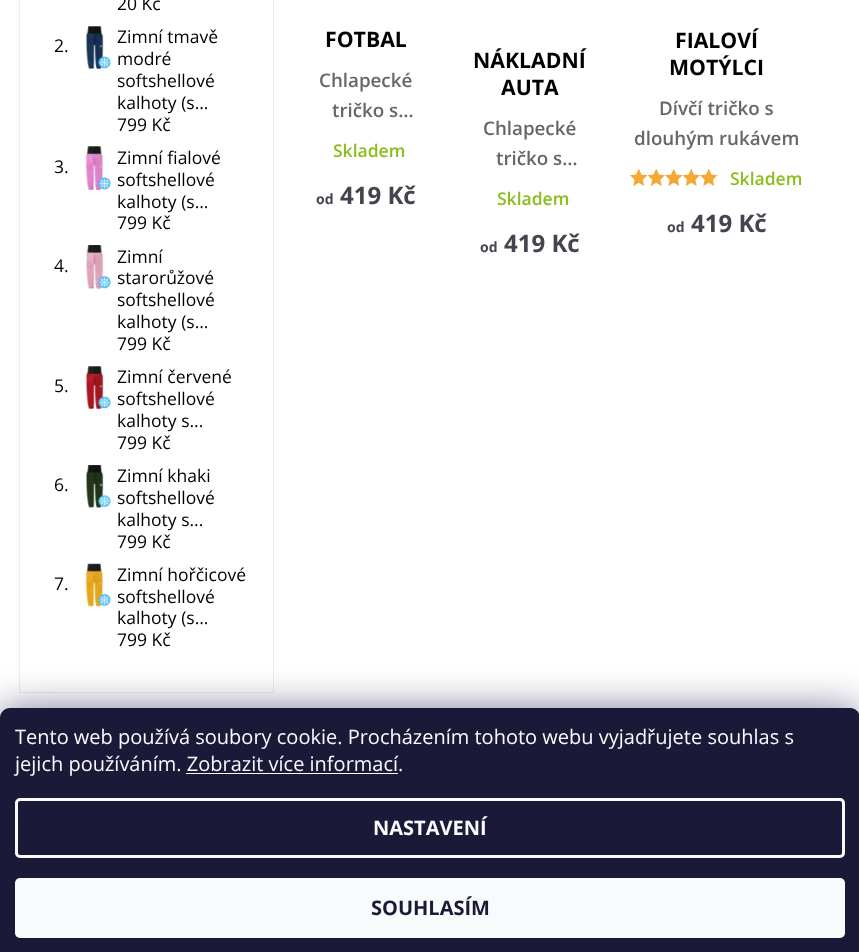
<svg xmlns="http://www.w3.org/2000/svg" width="859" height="952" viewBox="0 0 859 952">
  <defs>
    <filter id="blur1" x="-50%" y="-200%" width="200%" height="500%"><feGaussianBlur stdDeviation="19"/></filter>
  </defs>
  <rect width="100%" height="100%" fill="#ffffff"/>
  <rect x="19.5" y="-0.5" width="254" height="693" fill="none" stroke="#ededed"/>
  <text x="117" y="10" font-family="Open Sans" font-size="17.5" fill="#000000">20 Kč</text>
  <text x="54" y="52" font-family="Open Sans" font-size="17.5" fill="#000000">2.</text>
  <image x="85" y="26" width="26" height="43" href="img1.png"/>
  <text x="117" y="43" font-family="Open Sans" font-size="17.5" fill="#000000">Zimní tmavě</text>
  <text x="117" y="65" font-family="Open Sans" font-size="17.5" fill="#000000">modré</text>
  <text x="117" y="87" font-family="Open Sans" font-size="17.5" fill="#000000">softshellové</text>
  <text x="117" y="109" font-family="Open Sans" font-size="17.5" fill="#000000">kalhoty (s...</text>
  <text x="117" y="131" font-family="Open Sans" font-size="17.5" fill="#000000">799 Kč</text>
  <text x="54" y="173" font-family="Open Sans" font-size="17.5" fill="#000000">3.</text>
  <image x="85" y="146" width="26" height="44" href="img2.png"/>
  <text x="117" y="164" font-family="Open Sans" font-size="17.5" fill="#000000">Zimní fialové</text>
  <text x="117" y="186" font-family="Open Sans" font-size="17.5" fill="#000000">softshellové</text>
  <text x="117" y="208" font-family="Open Sans" font-size="17.5" fill="#000000">kalhoty (s...</text>
  <text x="117" y="229" font-family="Open Sans" font-size="17.5" fill="#000000">799 Kč</text>
  <text x="54" y="272" font-family="Open Sans" font-size="17.5" fill="#000000">4.</text>
  <image x="86" y="245" width="25" height="44" href="img3.png"/>
  <text x="117" y="263" font-family="Open Sans" font-size="17.5" fill="#000000">Zimní</text>
  <text x="117" y="284" font-family="Open Sans" font-size="17.5" fill="#000000">starorůžové</text>
  <text x="117" y="306" font-family="Open Sans" font-size="17.5" fill="#000000">softshellové</text>
  <text x="117" y="328" font-family="Open Sans" font-size="17.5" fill="#000000">kalhoty (s...</text>
  <text x="117" y="350" font-family="Open Sans" font-size="17.5" fill="#000000">799 Kč</text>
  <text x="54" y="392" font-family="Open Sans" font-size="17.5" fill="#000000">5.</text>
  <image x="85" y="366" width="26" height="43" href="img4.png"/>
  <text x="117" y="383" font-family="Open Sans" font-size="17.5" fill="#000000">Zimní červené</text>
  <text x="117" y="405" font-family="Open Sans" font-size="17.5" fill="#000000">softshellové</text>
  <text x="117" y="427" font-family="Open Sans" font-size="17.5" fill="#000000">kalhoty s...</text>
  <text x="117" y="449" font-family="Open Sans" font-size="17.5" fill="#000000">799 Kč</text>
  <text x="54" y="491" font-family="Open Sans" font-size="17.5" fill="#000000">6.</text>
  <image x="85" y="465" width="26" height="43" href="img5.png"/>
  <text x="117" y="482" font-family="Open Sans" font-size="17.5" fill="#000000">Zimní khaki</text>
  <text x="117" y="504" font-family="Open Sans" font-size="17.5" fill="#000000">softshellové</text>
  <text x="117" y="526" font-family="Open Sans" font-size="17.5" fill="#000000">kalhoty s...</text>
  <text x="117" y="548" font-family="Open Sans" font-size="17.5" fill="#000000">799 Kč</text>
  <text x="54" y="590" font-family="Open Sans" font-size="17.5" fill="#000000">7.</text>
  <image x="84" y="563" width="27" height="44" href="img6.png"/>
  <text x="117" y="581" font-family="Open Sans" font-size="17.5" fill="#000000">Zimní hořčicové</text>
  <text x="117" y="603" font-family="Open Sans" font-size="17.5" fill="#000000">softshellové</text>
  <text x="117" y="624" font-family="Open Sans" font-size="17.5" fill="#000000">kalhoty (s...</text>
  <text x="117" y="646" font-family="Open Sans" font-size="17.5" fill="#000000">799 Kč</text>
  <text x="325" y="47" font-family="Open Sans" font-size="21.25" font-weight="bold" fill="#000000">FOTBAL</text>
  <text x="319" y="87" font-family="Open Sans" font-size="18.75" font-weight="600" fill="#666666">Chlapecké</text>
  <text x="332" y="117" font-family="Open Sans" font-size="18.75" font-weight="600" fill="#666666">tričko s…</text>
  <text x="333" y="157" font-family="Open Sans" font-size="17.5" font-weight="600" fill="#8abe1a">Skladem</text>
  <text x="316" y="204" font-family="Open Sans" font-size="14" font-weight="bold" fill="#43454e">od</text>
  <text x="340" y="204" font-family="Open Sans" font-size="24" font-weight="bold" fill="#43454e">419 Kč</text>
  <text x="473" y="68" font-family="Open Sans" font-size="21.25" font-weight="bold" fill="#000000">NÁKLADNÍ</text>
  <text x="501" y="95" font-family="Open Sans" font-size="21.25" font-weight="bold" fill="#000000">AUTA</text>
  <text x="483" y="135" font-family="Open Sans" font-size="18.75" font-weight="600" fill="#666666">Chlapecké</text>
  <text x="496" y="165" font-family="Open Sans" font-size="18.75" font-weight="600" fill="#666666">tričko s…</text>
  <text x="497" y="205" font-family="Open Sans" font-size="17.5" font-weight="600" fill="#8abe1a">Skladem</text>
  <text x="480" y="252" font-family="Open Sans" font-size="14" font-weight="bold" fill="#43454e">od</text>
  <text x="504" y="252" font-family="Open Sans" font-size="24" font-weight="bold" fill="#43454e">419 Kč</text>
  <text x="675" y="48" font-family="Open Sans" font-size="21.25" font-weight="bold" fill="#000000">FIALOVÍ</text>
  <text x="669" y="75" font-family="Open Sans" font-size="21.25" font-weight="bold" fill="#000000">MOTÝLCI</text>
  <text x="659" y="115" font-family="Open Sans" font-size="18.75" font-weight="600" fill="#666666">Dívčí tričko s</text>
  <text x="634" y="145" font-family="Open Sans" font-size="18.75" font-weight="600" fill="#666666">dlouhým rukávem</text>
  <image x="630" y="168" width="18" height="18" href="img7.png"/>
  <image x="647" y="168" width="18" height="18" href="img8.png"/>
  <image x="665" y="168" width="18" height="18" href="img7.png"/>
  <image x="682" y="168" width="18" height="18" href="img8.png"/>
  <image x="700" y="168" width="18" height="18" href="img7.png"/>
  <text x="730" y="185" font-family="Open Sans" font-size="17.5" font-weight="600" fill="#8abe1a">Skladem</text>
  <text x="667" y="232" font-family="Open Sans" font-size="14" font-weight="bold" fill="#43454e">od</text>
  <text x="691" y="232" font-family="Open Sans" font-size="24" font-weight="bold" fill="#43454e">419 Kč</text>
  <rect x="0" y="708" width="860" height="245" rx="10" fill="#1b1939" fill-opacity="0.5" filter="url(#blur1)"/>
  <path d="M10 708H850C855.5 708 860 712.5 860 718V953H0V718C0 712.5 4.5 708 10 708Z" fill="#1a1937"/>
  <text x="15" y="744" font-family="Open Sans" font-size="20" fill="#f8fafb">Tento web používá soubory cookie. Procházením tohoto webu vyjadřujete souhlas s</text>
  <text x="15" y="771" font-family="Open Sans" font-size="20" fill="#f8fafb">jejich používáním. Zobrazit více informací.</text>
  <rect x="186" y="773" width="212" height="1" fill="#f8fafb"/>
  <rect x="16.5" y="799.5" width="827" height="57" rx="3.5" fill="none" stroke="#f8fafb" stroke-width="3"/>
  <text x="373" y="835" font-family="Open Sans" font-size="20" font-weight="bold" fill="#f8fafb">NASTAVENÍ</text>
  <rect x="15" y="878" width="830" height="60" rx="5" fill="#f8fafb"/>
  <text x="371" y="915" font-family="Open Sans" font-size="20" font-weight="bold" fill="#1a1937">SOUHLASÍM</text>
</svg>
